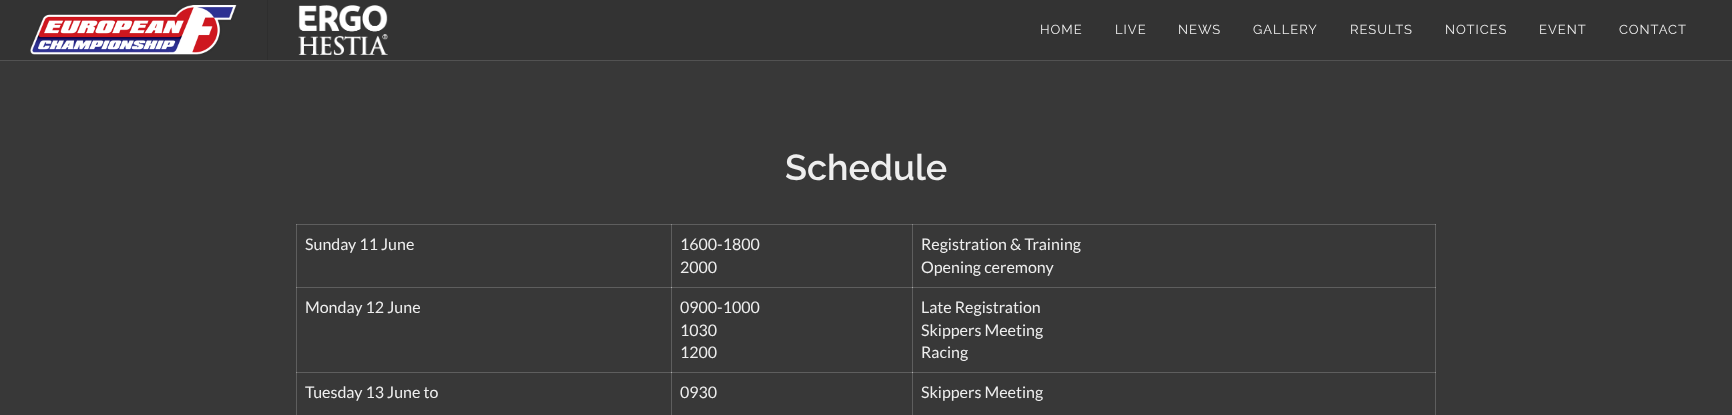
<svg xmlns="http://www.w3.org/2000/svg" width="1732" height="415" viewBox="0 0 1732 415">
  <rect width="100%" height="100%" fill="#383838"/>
  <rect x="671" y="224" width="1" height="64" fill="#5e5e5e"/>
  <rect x="912" y="224" width="1" height="64" fill="#5e5e5e"/>
  <rect x="296" y="287" width="376" height="1" fill="#5e5e5e"/>
  <rect x="671" y="287" width="1" height="86" fill="#5e5e5e"/>
  <rect x="671" y="287" width="242" height="1" fill="#5e5e5e"/>
  <rect x="671" y="287" width="1" height="1" fill="#aaaaaa"/>
  <rect x="912" y="287" width="1" height="86" fill="#5e5e5e"/>
  <rect x="912" y="287" width="524" height="1" fill="#5e5e5e"/>
  <rect x="912" y="287" width="1" height="1" fill="#aaaaaa"/>
  <rect x="296" y="372" width="376" height="1" fill="#5e5e5e"/>
  <rect x="671" y="372" width="1" height="43" fill="#5e5e5e"/>
  <rect x="671" y="372" width="242" height="1" fill="#5e5e5e"/>
  <rect x="671" y="372" width="1" height="1" fill="#aaaaaa"/>
  <rect x="912" y="372" width="1" height="43" fill="#5e5e5e"/>
  <rect x="912" y="372" width="524" height="1" fill="#5e5e5e"/>
  <rect x="912" y="372" width="1" height="1" fill="#aaaaaa"/>
  <rect x="296" y="224" width="1" height="191" fill="#5e5e5e"/>
  <rect x="296" y="287" width="1" height="1" fill="#8a8a8a"/>
  <rect x="296" y="372" width="1" height="1" fill="#8a8a8a"/>
  <rect x="1435" y="224" width="1" height="191" fill="#5e5e5e"/>
  <rect x="1435" y="287" width="1" height="1" fill="#8a8a8a"/>
  <rect x="1435" y="372" width="1" height="1" fill="#8a8a8a"/>
  <rect x="0" y="0" width="1732" height="60" fill="#333333"/>
  <rect x="0" y="60" width="1732" height="1" fill="#525252"/>
  <image x="30" y="5" width="207" height="50" href="img1.png"/>
  <rect x="267" y="0" width="1" height="60" fill="#2e2e2e"/>
  <image x="298" y="5" width="90" height="50" href="img2.png"/>
  <text x="1040" y="34" font-family="Raleway" font-size="13" letter-spacing="1" fill="#eeeeee">HOME</text>
  <text x="1115" y="34" font-family="Raleway" font-size="13" letter-spacing="1" fill="#eeeeee">LIVE</text>
  <text x="1178" y="34" font-family="Raleway" font-size="13" letter-spacing="1" fill="#eeeeee">NEWS</text>
  <text x="1253" y="34" font-family="Raleway" font-size="13" letter-spacing="1" fill="#eeeeee">GALLERY</text>
  <text x="1350" y="34" font-family="Raleway" font-size="13" letter-spacing="1" fill="#eeeeee">RESULTS</text>
  <text x="1445" y="34" font-family="Raleway" font-size="13" letter-spacing="1" fill="#eeeeee">NOTICES</text>
  <text x="1539" y="34" font-family="Raleway" font-size="13" letter-spacing="1" fill="#eeeeee">EVENT</text>
  <text x="1619" y="34" font-family="Raleway" font-size="13" letter-spacing="1" fill="#eeeeee">CONTACT</text>
  <text x="785" y="180" font-family="Raleway" font-size="36" font-weight="600" fill="#eeeeee">Schedule</text>
  <rect x="296" y="224" width="1140" height="1" fill="#5e5e5e"/>
  <rect x="671" y="224" width="1" height="1" fill="#8a8a8a"/>
  <rect x="912" y="224" width="1" height="1" fill="#8a8a8a"/>
  <rect x="296" y="224" width="1" height="1" fill="#7d7d7d"/>
  <rect x="1435" y="224" width="1" height="1" fill="#7d7d7d"/>
  <text x="305" y="250" font-family="Lato" font-size="16" fill="#eeeeee">Sunday 11 June</text>
  <text x="680" y="250" font-family="Lato" font-size="16" fill="#eeeeee">1600-1800</text>
  <text x="680" y="273" font-family="Lato" font-size="16" fill="#eeeeee">2000</text>
  <text x="921" y="250" font-family="Lato" font-size="16" fill="#eeeeee">Registration &amp; Training</text>
  <text x="921" y="273" font-family="Lato" font-size="16" fill="#eeeeee">Opening ceremony</text>
  <text x="305" y="313" font-family="Lato" font-size="16" fill="#eeeeee">Monday 12 June</text>
  <text x="680" y="313" font-family="Lato" font-size="16" fill="#eeeeee">0900-1000</text>
  <text x="680" y="336" font-family="Lato" font-size="16" fill="#eeeeee">1030</text>
  <text x="680" y="358" font-family="Lato" font-size="16" fill="#eeeeee">1200</text>
  <text x="921" y="313" font-family="Lato" font-size="16" fill="#eeeeee">Late Registration</text>
  <text x="921" y="336" font-family="Lato" font-size="16" fill="#eeeeee">Skippers Meeting</text>
  <text x="921" y="358" font-family="Lato" font-size="16" fill="#eeeeee">Racing</text>
  <text x="305" y="398" font-family="Lato" font-size="16" fill="#eeeeee">Tuesday 13 June to</text>
  <text x="680" y="398" font-family="Lato" font-size="16" fill="#eeeeee">0930</text>
  <text x="921" y="398" font-family="Lato" font-size="16" fill="#eeeeee">Skippers Meeting</text>
</svg>
